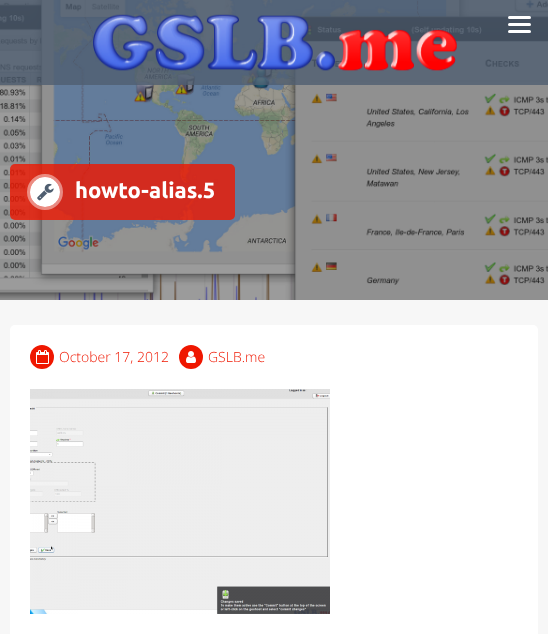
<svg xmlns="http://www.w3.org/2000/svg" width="548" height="634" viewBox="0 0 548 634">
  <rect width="100%" height="100%" fill="#f7f7f7"/>
  <image x="0" y="0" width="548" height="300" href="img2.png"/>
  <rect x="0" y="0" width="548" height="85" fill="#4f5e70" fill-opacity="0.8"/>
  <image x="93" y="14" width="364" height="57" href="img1.png"/>
  <rect x="508" y="23" width="23" height="3" rx="1.5" fill="#ffffff"/>
  <rect x="508" y="16" width="23" height="3" rx="1.5" fill="#ffffff"/>
  <rect x="508" y="30" width="23" height="3" rx="1.5" fill="#ffffff"/>
  <rect x="10" y="164" width="225" height="56" rx="5" fill="#ef1700" fill-opacity="0.8"/>
  <circle cx="45" cy="192" r="16.5" fill="none" stroke="#ffffff" stroke-opacity="0.45" stroke-width="3"/>
  <circle cx="45" cy="192" r="15" fill="#ffffff"/>
  <image x="37" y="183" width="17" height="18" href="img3.png"/>
  <text x="75" y="198" font-family="Ubuntu" font-size="22" font-weight="bold" fill="#ffffff">howto-alias.5</text>
  <rect x="10" y="325" width="528" height="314" rx="5" fill="#ffffff"/>
  <circle cx="42" cy="357" r="12" fill="#ef1700"/>
  <image x="36" y="350" width="13" height="14" href="img4.png"/>
  <text x="59" y="362" font-family="Open Sans" font-size="14" font-weight="300" fill="#ef1700">October 17, 2012</text>
  <circle cx="191" cy="357" r="12" fill="#ef1700"/>
  <image x="186" y="351" width="10" height="12" href="img5.png"/>
  <text x="208" y="362" font-family="Open Sans" font-size="14" font-weight="300" fill="#ef1700">GSLB.me</text>
  <image x="30" y="389" width="300" height="225" href="img6.png"/>
</svg>
